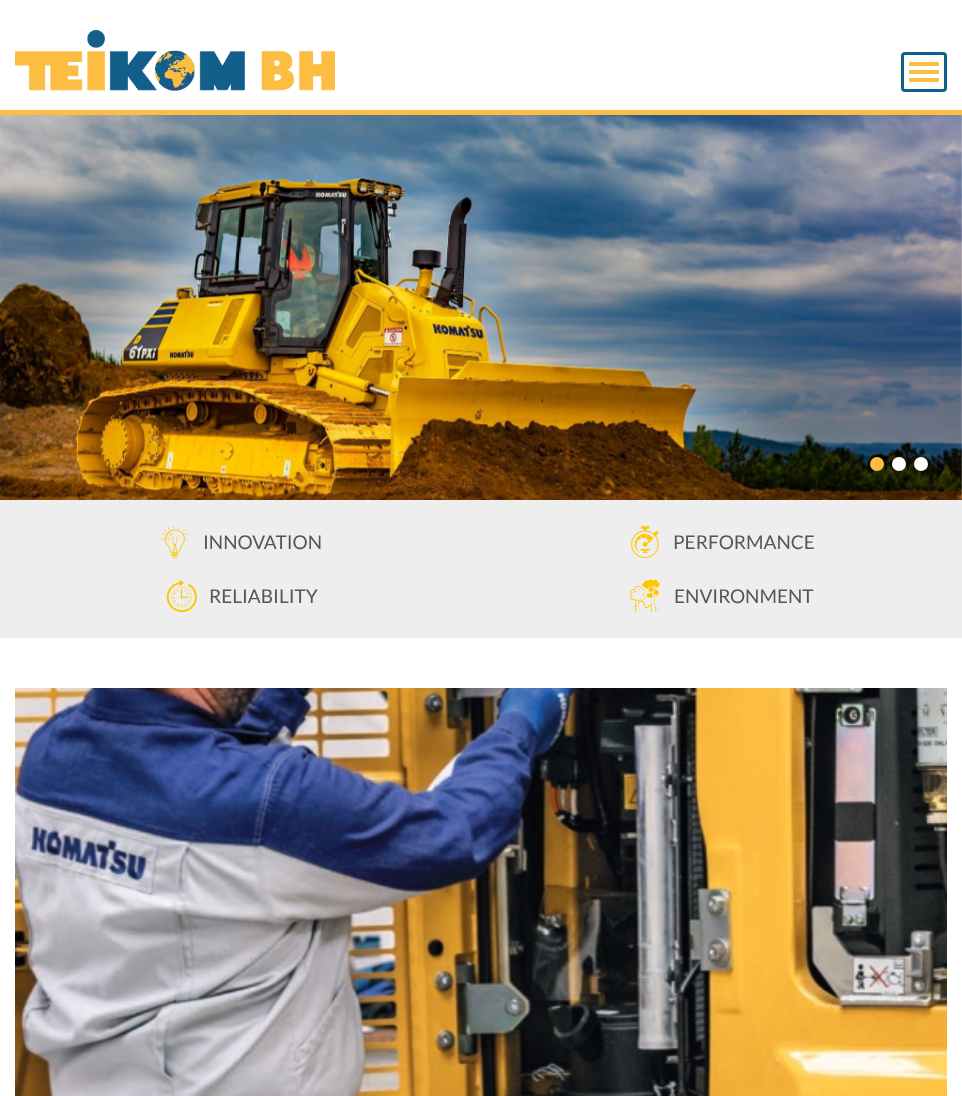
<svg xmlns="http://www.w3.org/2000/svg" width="962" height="1096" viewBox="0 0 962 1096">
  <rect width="100%" height="100%" fill="#ffffff"/>
  <rect x="0" y="110" width="962" height="5" fill="#fdbd43"/>
  <image x="15" y="30" width="320" height="61" href="img1.png"/>
  <rect x="902.5" y="53.5" width="43" height="37" rx="2.5" fill="none" stroke="#135f8b" stroke-width="3"/>
  <rect x="909" y="62" width="30" height="4" rx="1" fill="#fdbd43"/>
  <rect x="909" y="70" width="30" height="4" rx="1" fill="#fdbd43"/>
  <rect x="909" y="78" width="30" height="4" rx="1" fill="#fdbd43"/>
  <image x="0" y="115" width="962" height="385" href="img2.png"/>
  <circle cx="877" cy="464" r="7" fill="#fdbd43"/>
  <circle cx="899" cy="464" r="7" fill="#ffffff"/>
  <circle cx="921" cy="464" r="7" fill="#ffffff"/>
  <rect x="0" y="500" width="962" height="138" fill="#eeeeee"/>
  <image x="160" y="525" width="29" height="34" href="img3.png"/>
  <text x="203" y="549" font-family="Lato" font-size="19" fill="#555555">INNOVATION</text>
  <image x="631" y="526" width="28" height="33" href="img4.png"/>
  <text x="673" y="549" font-family="Lato" font-size="19" fill="#555555">PERFORMANCE</text>
  <image x="166" y="579" width="31" height="34" href="img5.png"/>
  <text x="209" y="603" font-family="Lato" font-size="19" fill="#555555">RELIABILITY</text>
  <image x="630" y="579" width="30" height="34" href="img6.png"/>
  <text x="674" y="603" font-family="Lato" font-size="19" fill="#555555">ENVIRONMENT</text>
  <image x="15" y="688" width="932" height="408" href="img7.png"/>
</svg>
